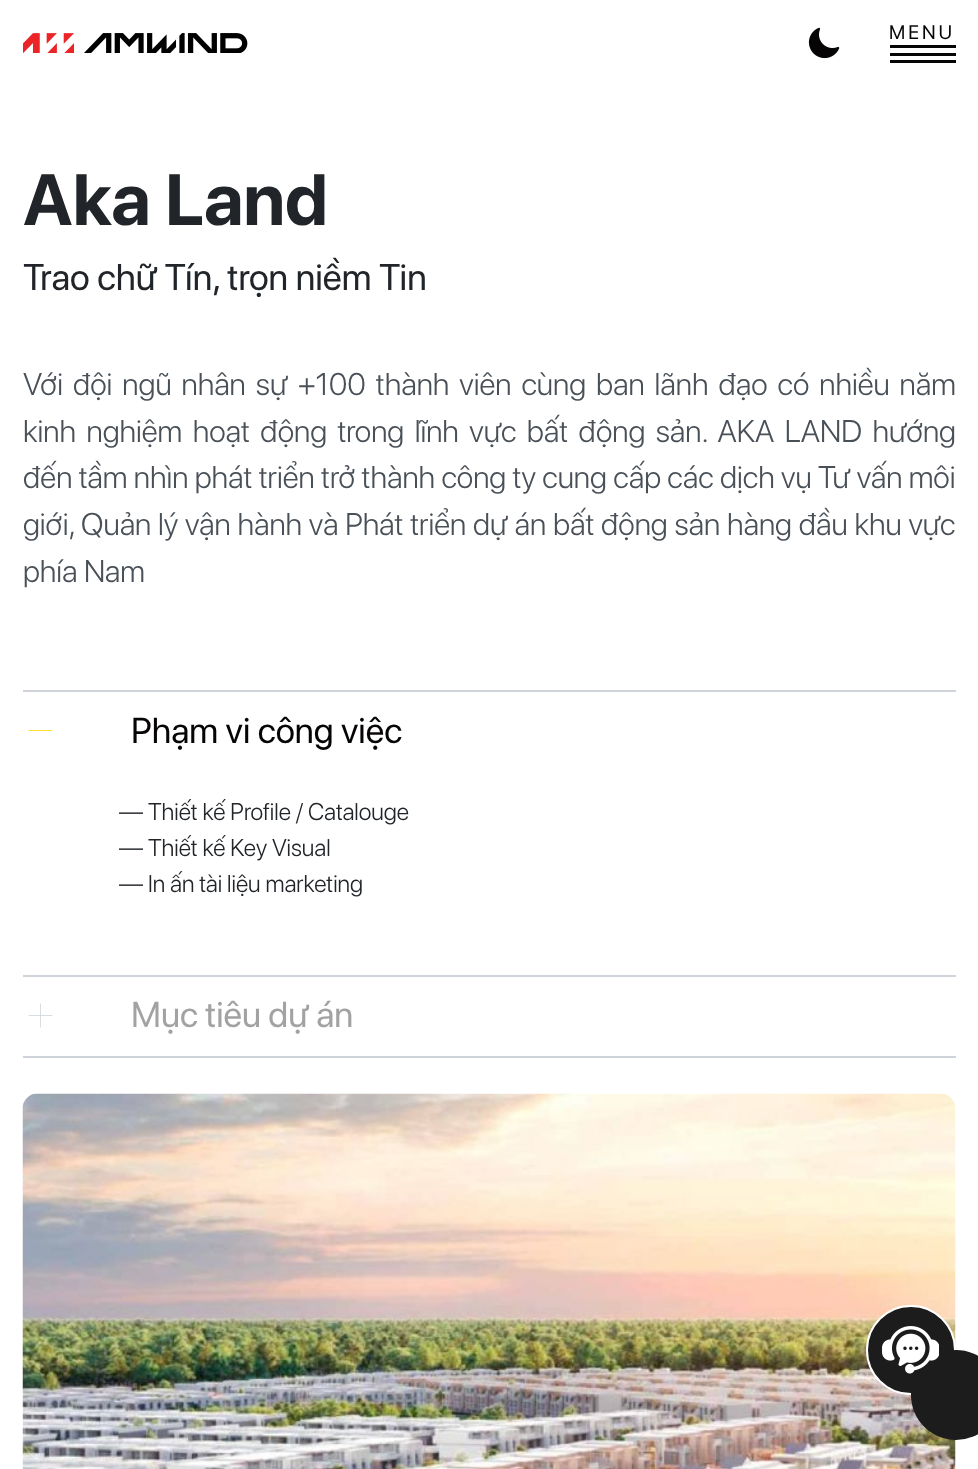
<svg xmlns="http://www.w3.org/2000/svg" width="978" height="1469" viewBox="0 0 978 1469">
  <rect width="100%" height="100%" fill="#ffffff"/>
  <image x="23" y="33" width="225" height="20" href="img1.png"/>
  <image x="808" y="27" width="32" height="32" href="img2.png"/>
  <text x="889" y="39" font-family="SF Pro Display" font-size="19.5" letter-spacing="3" fill="#070406">MENU</text>
  <rect x="890" y="45" width="66" height="3" fill="#070406"/>
  <rect x="890" y="53" width="66" height="3" fill="#070406"/>
  <rect x="890" y="60" width="66" height="3" fill="#070406"/>
  <text x="23" y="225" font-family="SF Pro Display" font-size="72" font-weight="bold" fill="#212529">Aka Land</text>
  <text x="23" y="290" font-family="SF Pro Display" font-size="37" fill="#212529">Trao chữ Tín, trọn niềm Tin</text>
  <text x="23" y="395" word-spacing="3.6" font-family="SF Pro Display" font-size="31.2" font-weight="300" fill="#495057">Với đội ngũ nhân sự +100 thành viên cùng ban lãnh đạo có nhiều năm</text>
  <text x="23" y="442" word-spacing="4.1" font-family="SF Pro Display" font-size="31.2" font-weight="300" fill="#495057">kinh nghiệm hoạt động trong lĩnh vực bất động sản. AKA LAND hướng</text>
  <text x="23" y="488" font-family="SF Pro Display" font-size="31.2" font-weight="300" fill="#495057">đến tầm nhìn phát triển trở thành công ty cung cấp các dịch vụ Tư vấn môi</text>
  <text x="23" y="535" word-spacing="0.4" font-family="SF Pro Display" font-size="31.2" font-weight="300" fill="#495057">giới, Quản lý vận hành và Phát triển dự án bất động sản hàng đầu khu vực</text>
  <text x="23" y="582" font-family="SF Pro Display" font-size="31.2" font-weight="300" fill="#495057">phía Nam</text>
  <rect x="23" y="690" width="933" height="2" fill="#ced4da"/>
  <path d="M29 730.5H52" fill="none" stroke="#ffd800" stroke-width="0.8" stroke-linecap="round" stroke-linejoin="round"/>
  <text x="131" y="743" font-family="SF Pro Display" font-size="36" fill="#070406">Phạm vi công việc</text>
  <text x="119" y="820" font-family="SF Pro Display" font-size="24" font-weight="300" fill="#212529">— Thiết kế Profile / Catalouge</text>
  <text x="119" y="856" font-family="SF Pro Display" font-size="24" font-weight="300" fill="#212529">— Thiết kế Key Visual</text>
  <text x="119" y="892" font-family="SF Pro Display" font-size="24" font-weight="300" fill="#212529">— In ấn tài liệu marketing</text>
  <rect x="23" y="975" width="933" height="2" fill="#ced4da"/>
  <rect x="23" y="1056" width="933" height="2" fill="#ced4da"/>
  <path d="M40.5 1004V1027M52 1015.5H29" fill="none" stroke="#ced4da" stroke-width="0.8" stroke-linecap="round" stroke-linejoin="round"/>
  <text x="131" y="1027" font-family="SF Pro Display" font-size="36" fill="#a2a2a2">Mục tiêu dự án</text>
  <image x="22" y="1093" width="934" height="376" href="img3.png"/>
  <circle cx="911" cy="1350" r="44" fill="#1c1c1c" stroke="#ffffff" stroke-width="2"/>
  <circle cx="956" cy="1395" r="45" fill="#1c1c1c"/>
  <image x="882" y="1326" width="57" height="48" href="img4.png"/>
</svg>
